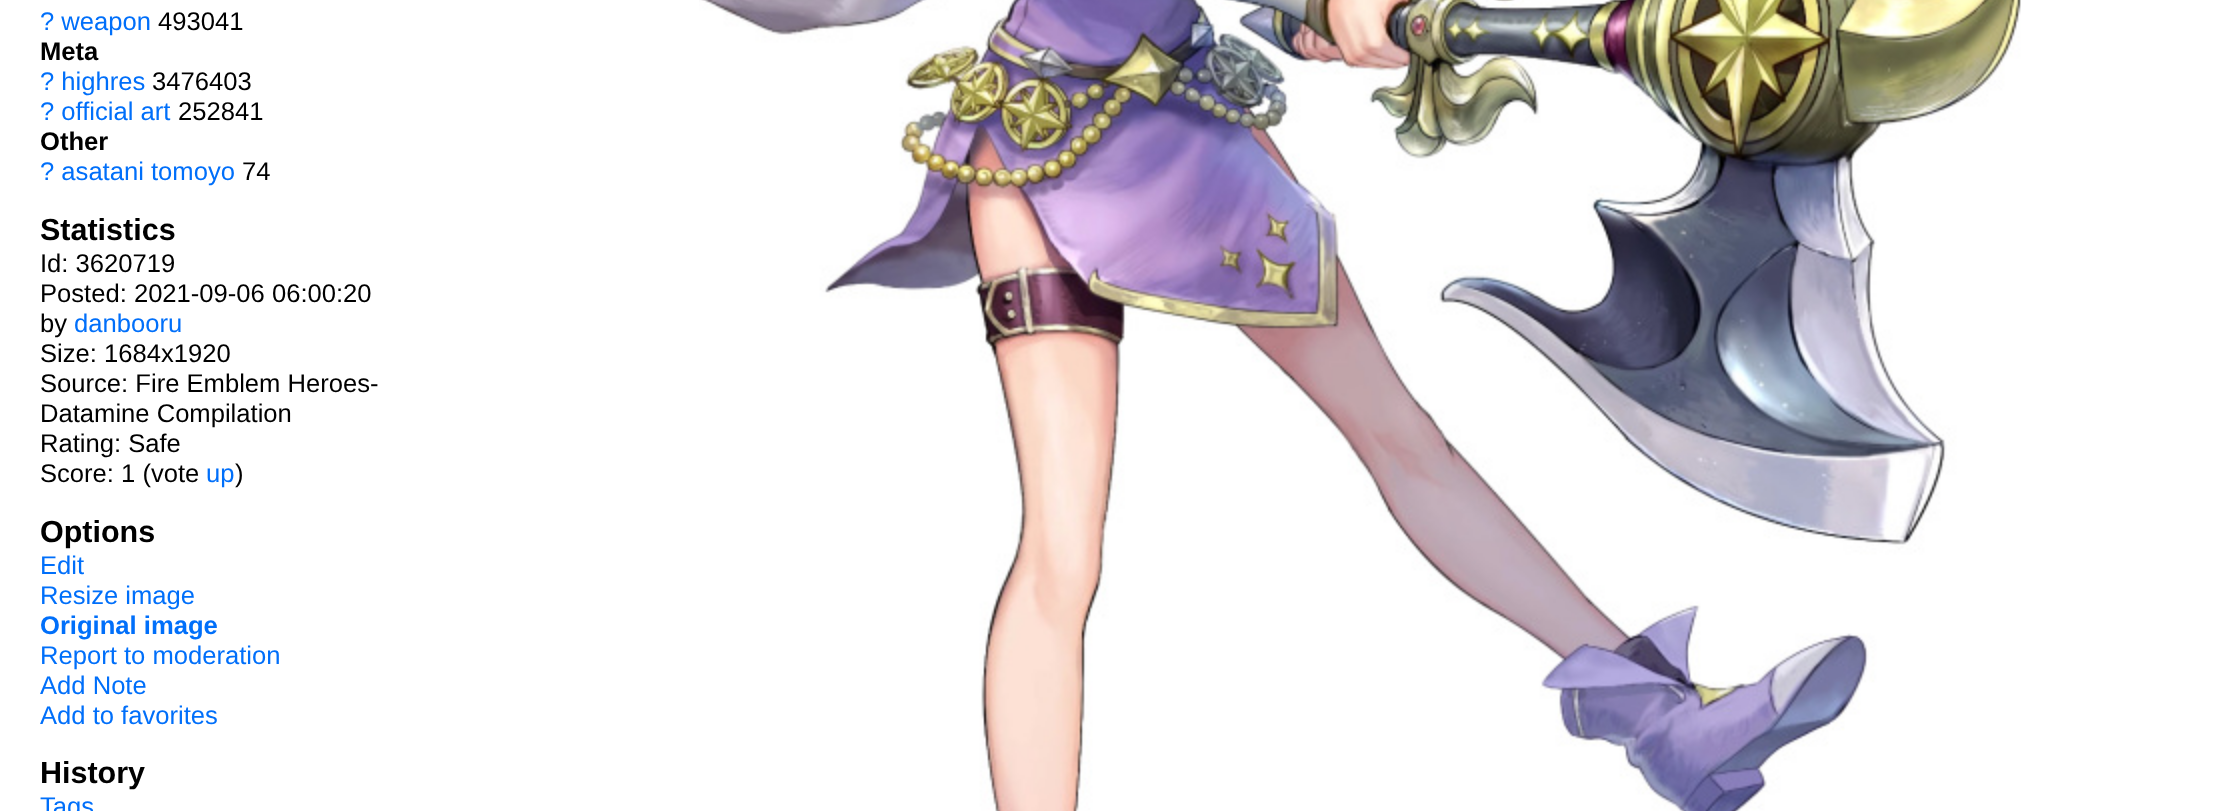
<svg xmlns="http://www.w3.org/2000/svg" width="2216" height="811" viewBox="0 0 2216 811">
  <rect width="100%" height="100%" fill="#ffffff"/>
  <text x="40" y="30" font-family="Liberation Sans" font-size="25.6" fill="#006ffa">? weapon</text>
  <text x="158" y="30" font-family="Liberation Sans" font-size="25.6" fill="#000000">493041</text>
  <text x="40" y="60" font-family="Liberation Sans" font-size="25.6" font-weight="bold" fill="#000000">Meta</text>
  <text x="40" y="90" font-family="Liberation Sans" font-size="25.6" fill="#006ffa">? highres</text>
  <text x="152" y="90" font-family="Liberation Sans" font-size="25.6" fill="#000000">3476403</text>
  <text x="40" y="120" font-family="Liberation Sans" font-size="25.6" fill="#006ffa">? official art</text>
  <text x="178" y="120" font-family="Liberation Sans" font-size="25.6" fill="#000000">252841</text>
  <text x="40" y="150" font-family="Liberation Sans" font-size="25.6" font-weight="bold" fill="#000000">Other</text>
  <text x="40" y="180" font-family="Liberation Sans" font-size="25.6" fill="#006ffa">? asatani tomoyo</text>
  <text x="242" y="180" font-family="Liberation Sans" font-size="25.6" fill="#000000">74</text>
  <text x="40" y="240" font-family="Liberation Sans" font-size="30.5" font-weight="bold" fill="#000000">Statistics</text>
  <text x="40" y="272" font-family="Liberation Sans" font-size="25.6" fill="#000000">Id: 3620719</text>
  <text x="40" y="302" font-family="Liberation Sans" font-size="25.6" fill="#000000">Posted: 2021-09-06 06:00:20</text>
  <text x="40" y="332" font-family="Liberation Sans" font-size="25.6" fill="#000000">by</text>
  <text x="74" y="332" font-family="Liberation Sans" font-size="25.6" fill="#006ffa">danbooru</text>
  <text x="40" y="362" font-family="Liberation Sans" font-size="25.6" fill="#000000">Size: 1684x1920</text>
  <text x="40" y="392" font-family="Liberation Sans" font-size="25.6" fill="#000000">Source: Fire Emblem Heroes-</text>
  <text x="40" y="422" font-family="Liberation Sans" font-size="25.6" fill="#000000">Datamine Compilation</text>
  <text x="40" y="452" font-family="Liberation Sans" font-size="25.6" fill="#000000">Rating: Safe</text>
  <text x="40" y="482" font-family="Liberation Sans" font-size="25.6" fill="#000000">Score: 1 (vote</text>
  <text x="206" y="482" font-family="Liberation Sans" font-size="25.6" fill="#006ffa">up</text>
  <text x="235" y="482" font-family="Liberation Sans" font-size="25.6" fill="#000000">)</text>
  <text x="40" y="542" font-family="Liberation Sans" font-size="30.5" font-weight="bold" fill="#000000">Options</text>
  <text x="40" y="574" font-family="Liberation Sans" font-size="25.6" fill="#006ffa">Edit</text>
  <text x="40" y="604" font-family="Liberation Sans" font-size="25.6" fill="#006ffa">Resize image</text>
  <text x="40" y="634" font-family="Liberation Sans" font-size="25.6" font-weight="bold" fill="#006ffa">Original image</text>
  <text x="40" y="664" font-family="Liberation Sans" font-size="25.6" fill="#006ffa">Report to moderation</text>
  <text x="40" y="694" font-family="Liberation Sans" font-size="25.6" fill="#006ffa">Add Note</text>
  <text x="40" y="724" font-family="Liberation Sans" font-size="25.6" fill="#006ffa">Add to favorites</text>
  <text x="40" y="783" font-family="Liberation Sans" font-size="30.5" font-weight="bold" fill="#000000">History</text>
  <text x="40" y="815" font-family="Liberation Sans" font-size="25.6" fill="#006ffa">Tags</text>
  <image x="699" y="0" width="1322" height="811" href="img1.png"/>
</svg>
